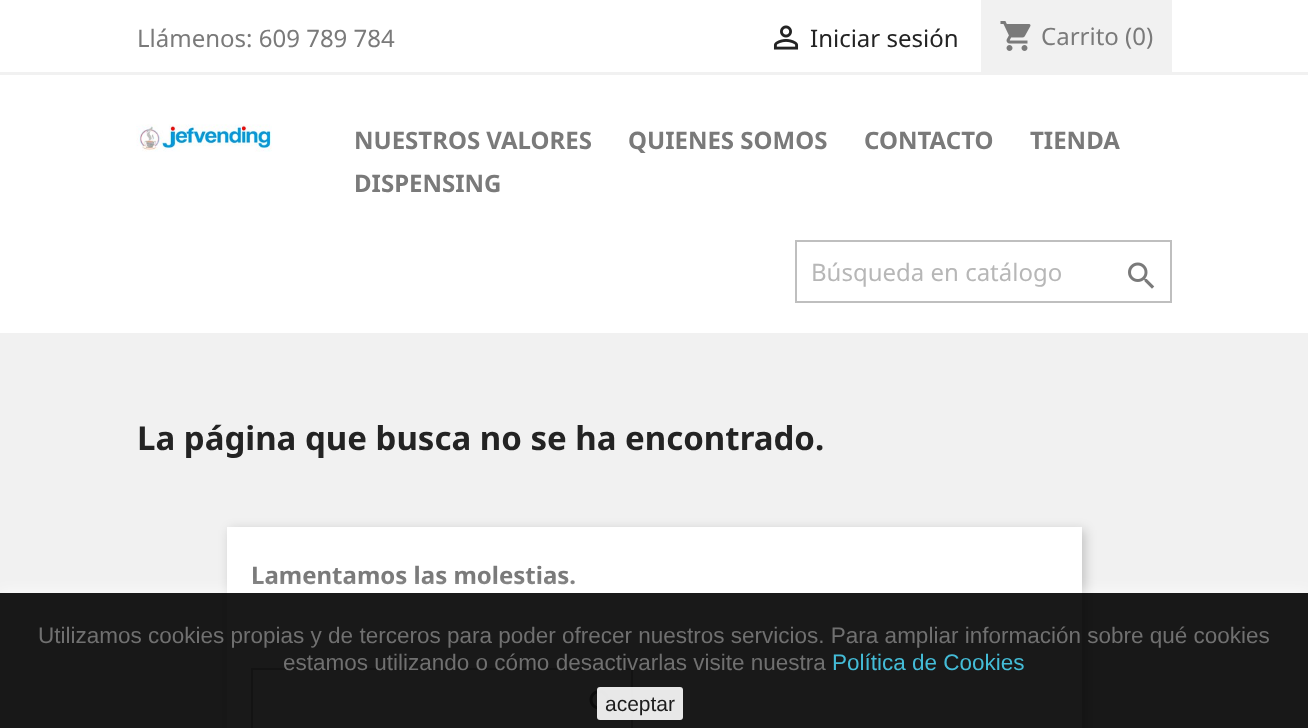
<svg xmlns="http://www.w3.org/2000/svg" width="1308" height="728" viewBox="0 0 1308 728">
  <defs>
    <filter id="blur1" x="-50%" y="-200%" width="200%" height="500%"><feGaussianBlur stdDeviation="6"/></filter>
    <clipPath id="clip1"><rect x="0" y="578" width="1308" height="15"/></clipPath>
    <filter id="blur2" x="-50%" y="-200%" width="200%" height="500%"><feGaussianBlur stdDeviation="7.5"/></filter>
  </defs>
  <rect width="100%" height="100%" fill="#ffffff"/>
  <rect x="0" y="72" width="1308" height="3" fill="#f1f1f1"/>
  <text x="137" y="47" font-family="Noto Sans" font-size="24" fill="#7a7a7a">Llámenos: 609 789 784</text>
  <image x="773" y="25" width="26" height="25" href="img1.png"/>
  <text x="810" y="47" font-family="Noto Sans" font-size="24" fill="#232323">Iniciar sesión</text>
  <rect x="981" y="0" width="191" height="72" fill="#f1f1f1"/>
  <image x="1000" y="21" width="31" height="30" href="img2.png"/>
  <text x="1041" y="45" font-family="Noto Sans" font-size="24" fill="#7a7a7a">Carrito (0)</text>
  <image x="136" y="124" width="136" height="28" href="img3.png"/>
  <text x="354" y="149" font-family="Noto Sans" font-size="24" font-weight="bold" fill="#7a7a7a">NUESTROS VALORES</text>
  <text x="628" y="149" font-family="Noto Sans" font-size="24" font-weight="bold" fill="#7a7a7a">QUIENES SOMOS</text>
  <text x="864" y="149" font-family="Noto Sans" font-size="24" font-weight="bold" fill="#7a7a7a">CONTACTO</text>
  <text x="1030" y="149" font-family="Noto Sans" font-size="24" font-weight="bold" fill="#7a7a7a">TIENDA</text>
  <text x="354" y="192" font-family="Noto Sans" font-size="24" font-weight="bold" fill="#7a7a7a">DISPENSING</text>
  <rect x="796" y="241" width="375" height="61" fill="none" stroke="#bfbfbf" stroke-width="2"/>
  <text x="811" y="281" font-family="Noto Sans" font-size="24" fill="#b7b7b7">Búsqueda en catálogo</text>
  <image x="1128" y="262" width="27" height="27" href="img4.png"/>
  <rect x="0" y="333" width="1308" height="395" fill="#f1f1f1"/>
  <text x="137" y="450" font-family="Noto Sans" font-size="33" font-weight="bold" fill="#232323">La página que busca no se ha encontrado.</text>
  <rect x="230" y="530" width="855" height="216" fill="#000000" fill-opacity="0.2" filter="url(#blur1)"/>
  <rect x="227" y="527" width="855" height="201" fill="#ffffff"/>
  <text x="251" y="584" font-family="Noto Sans" font-size="24" font-weight="bold" fill="#7a7a7a">Lamentamos las molestias.</text>
  <rect x="252" y="669" width="380" height="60" fill="none" stroke="#bfbfbf" stroke-width="2"/>
  <image x="589" y="690" width="27" height="27" href="img5.png"/>
  <g clip-path="url(#clip1)">
    <rect x="0" y="593" width="1308" height="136" fill="#ffffff" fill-opacity="0.9" filter="url(#blur2)"/>
  </g>
  <rect x="0" y="593" width="1308" height="135" fill="#000000" fill-opacity="0.9"/>
  <text x="38" y="643" font-family="Liberation Sans" font-size="22.5" fill="#707070">Utilizamos cookies propias y de terceros para poder ofrecer nuestros servicios. Para ampliar información sobre qué cookies</text>
  <text x="283" y="670" font-family="Liberation Sans" font-size="22.5" fill="#707070">estamos utilizando o cómo desactivarlas visite nuestra</text>
  <text x="832" y="670" font-family="Liberation Sans" font-size="22.5" fill="#44bcd7">Política de Cookies</text>
  <rect x="597" y="687" width="86" height="33" rx="3" fill="#ffffff" fill-opacity="0.9"/>
  <text x="605" y="711" font-family="Liberation Sans" font-size="21" fill="#1c1c1c">aceptar</text>
</svg>
